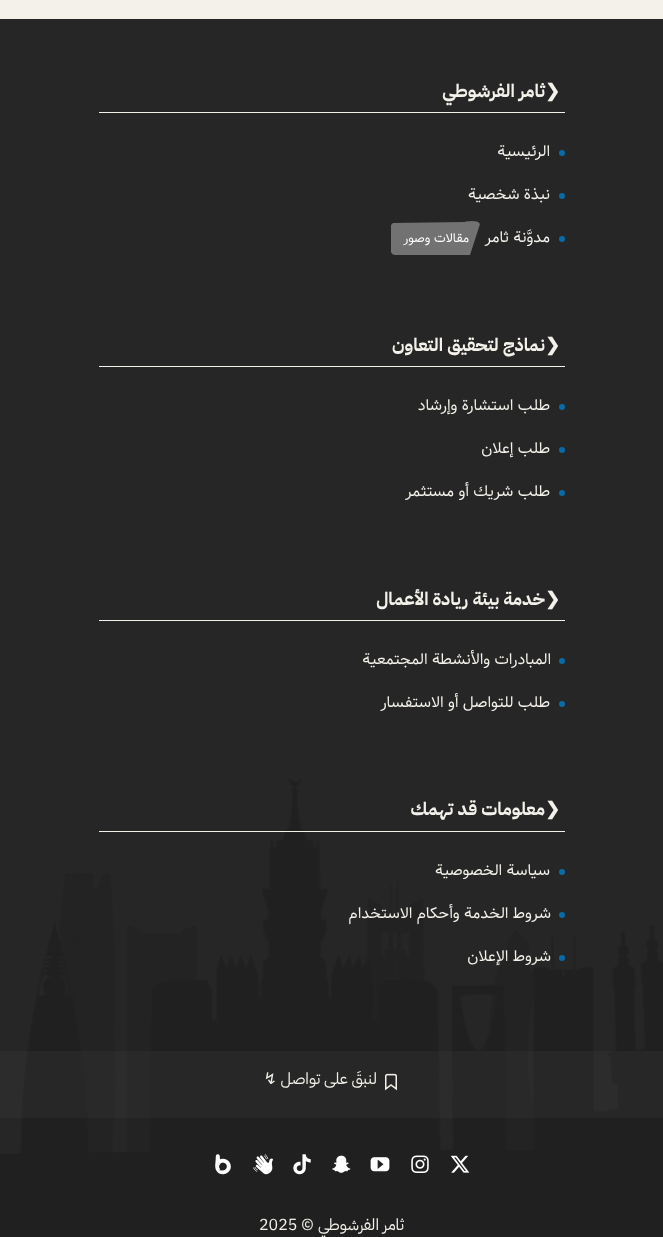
<svg xmlns="http://www.w3.org/2000/svg" width="663" height="1237" viewBox="0 0 663 1237">
  <rect width="100%" height="100%" fill="#f3f1e9"/>
  <rect x="0" y="19" width="663" height="1218" fill="#262626"/>
  <image x="0" y="779" width="663" height="458" href="img1.png"/>
  <rect x="99" y="112" width="466" height="1" fill="#f3f1e9"/>
  <text x="545" y="97" font-family="DejaVu Sans" font-size="18" font-weight="bold" fill="#f3f1e9">❯</text>
  <text x="545" y="97" font-family="IBM Plex Sans Arabic" font-size="18" font-weight="bold" direction="rtl" fill="#f3f1e9">ثامر الفرشوطي</text>
  <circle cx="562" cy="153" r="3" fill="#086ba8"/>
  <text x="550" y="156" font-family="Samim" font-size="16" direction="rtl" fill="#f3f1e9">الرئيسية</text>
  <circle cx="562" cy="196" r="3" fill="#086ba8"/>
  <text x="550" y="199" font-family="Samim" font-size="16" direction="rtl" fill="#f3f1e9">نبذة شخصية</text>
  <circle cx="562" cy="239" r="3" fill="#086ba8"/>
  <text x="550" y="242" font-family="Samim" font-size="16" direction="rtl" fill="#f3f1e9">مدوَّنة ثامر</text>
  <path d="M391 225L393 223L465 222C465 222 477 219 480 224L470 255H395C393 255 392 254 391 252Z" fill="#727272"/>
  <text x="469" y="242" font-family="Samim" font-size="13" direction="rtl" fill="#ffffff">مقالات وصور</text>
  <rect x="99" y="366" width="466" height="1" fill="#f3f1e9"/>
  <text x="545" y="351" font-family="DejaVu Sans" font-size="18" font-weight="bold" fill="#f3f1e9">❯</text>
  <text x="545" y="351" font-family="IBM Plex Sans Arabic" font-size="18" font-weight="bold" direction="rtl" fill="#f3f1e9">نماذج لتحقيق التعاون</text>
  <circle cx="562" cy="407" r="3" fill="#086ba8"/>
  <text x="550" y="410" font-family="Samim" font-size="16" direction="rtl" fill="#f3f1e9">طلب استشارة وإرشاد</text>
  <circle cx="562" cy="450" r="3" fill="#086ba8"/>
  <text x="550" y="453" font-family="Samim" font-size="16" direction="rtl" fill="#f3f1e9">طلب إعلان</text>
  <circle cx="562" cy="493" r="3" fill="#086ba8"/>
  <text x="550" y="496" font-family="Samim" font-size="16" direction="rtl" fill="#f3f1e9">طلب شريك أو مستثمر</text>
  <rect x="99" y="620" width="466" height="1" fill="#f3f1e9"/>
  <text x="545" y="605" font-family="DejaVu Sans" font-size="18" font-weight="bold" fill="#f3f1e9">❯</text>
  <text x="545" y="605" font-family="IBM Plex Sans Arabic" font-size="18" font-weight="bold" direction="rtl" fill="#f3f1e9">خدمة بيئة ريادة الأعمال</text>
  <circle cx="562" cy="661" r="3" fill="#086ba8"/>
  <text x="551" y="664" font-family="Samim" font-size="16" direction="rtl" fill="#f3f1e9">المبادرات والأنشطة المجتمعية</text>
  <circle cx="562" cy="704" r="3" fill="#086ba8"/>
  <text x="550" y="707" font-family="Samim" font-size="16" direction="rtl" fill="#f3f1e9">طلب للتواصل أو الاستفسار</text>
  <rect x="99" y="831" width="466" height="1" fill="#f3f1e9"/>
  <text x="545" y="815" font-family="DejaVu Sans" font-size="18" font-weight="bold" fill="#f3f1e9">❯</text>
  <text x="545" y="815" font-family="IBM Plex Sans Arabic" font-size="18" font-weight="bold" direction="rtl" fill="#f3f1e9">معلومات قد تهمك</text>
  <circle cx="562" cy="872" r="3" fill="#086ba8"/>
  <text x="550" y="875" font-family="Samim" font-size="16" direction="rtl" fill="#f3f1e9">سياسة الخصوصية</text>
  <circle cx="562" cy="915" r="3" fill="#086ba8"/>
  <text x="551" y="918" font-family="Samim" font-size="16" direction="rtl" fill="#f3f1e9">شروط الخدمة وأحكام الاستخدام</text>
  <circle cx="562" cy="958" r="3" fill="#086ba8"/>
  <text x="551" y="961" font-family="Samim" font-size="16" direction="rtl" fill="#f3f1e9">شروط الإعلان</text>
  <rect x="0" y="1051" width="663" height="67" fill="#ffffff" fill-opacity="0.03"/>
  <image x="385" y="1073" width="12" height="18" href="img2.png"/>
  <text x="377" y="1084" font-family="IBM Plex Sans Arabic" font-size="16" direction="rtl" fill="#f3f1e9">لنبقَ على تواصل</text>
  <text x="277" y="1084" font-family="DejaVu Sans" font-size="16" direction="rtl" fill="#f3f1e9">↯</text>
  <image x="450" y="1155" width="20" height="18" href="img3.png"/>
  <image x="411" y="1155" width="18" height="18" href="img4.png"/>
  <image x="370" y="1157" width="20" height="15" href="img5.png"/>
  <image x="332" y="1155" width="19" height="18" href="img6.png"/>
  <image x="293" y="1154" width="18" height="21" href="img7.png"/>
  <image x="253" y="1154" width="20" height="21" href="img8.png"/>
  <image x="215" y="1154" width="16" height="21" href="img9.png"/>
  <text x="404" y="1230" font-family="IBM Plex Sans Arabic" font-size="16" direction="rtl" fill="#f3f1e9">ثامر الفرشوطي</text>
  <text x="259" y="1230" font-family="IBM Plex Sans Arabic" font-size="16" fill="#f3f1e9">2025 ©</text>
</svg>
